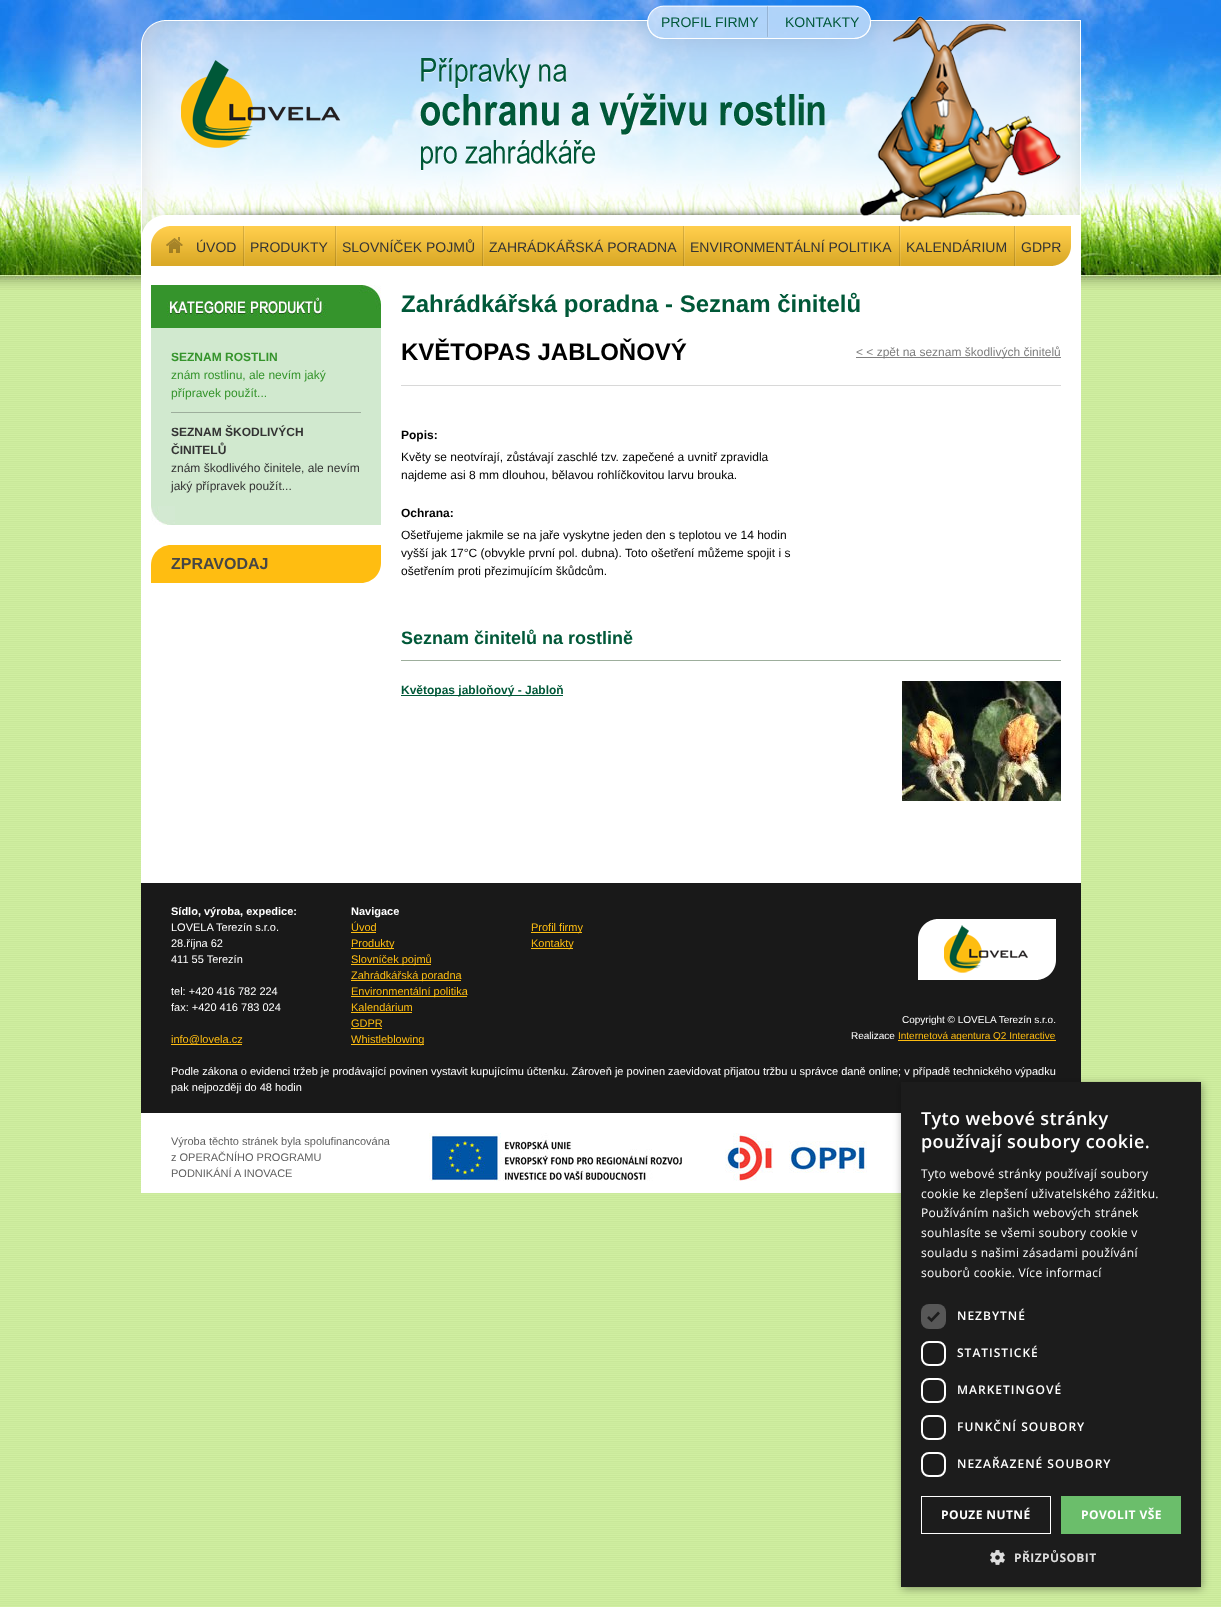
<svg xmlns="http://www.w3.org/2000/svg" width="1221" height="1607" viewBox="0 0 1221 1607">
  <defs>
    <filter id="blur1" x="-50%" y="-200%" width="200%" height="500%"><feGaussianBlur stdDeviation="4"/></filter>
  </defs>
  <rect width="100%" height="100%" fill="#ffffff"/>
  <image x="0" y="290" width="1221" height="1317" href="img1.png"/>
  <image x="0" y="0" width="1221" height="290" href="img2.png"/>
  <image x="141" y="5" width="940" height="270" href="img3.png"/>
  <text x="661" y="27" font-family="Liberation Sans" font-size="14" fill="#005838">PROFIL FIRMY</text>
  <text x="785" y="27" font-family="Liberation Sans" font-size="14" fill="#005838">KONTAKTY</text>
  <image x="181" y="60" width="160" height="88" href="img4.png"/>
  <image x="151" y="226" width="920" height="40" href="img5.png"/>
  <image x="166" y="237" width="17" height="16" href="img6.png"/>
  <text x="196" y="252" font-family="Liberation Sans" font-size="14" fill="#333333">ÚVOD</text>
  <image x="243" y="226" width="2" height="40" href="img7.png"/>
  <text x="250" y="252" font-family="Liberation Sans" font-size="14" fill="#333333">PRODUKTY</text>
  <image x="335" y="226" width="2" height="40" href="img7.png"/>
  <text x="342" y="252" font-family="Liberation Sans" font-size="14" fill="#333333">SLOVNÍČEK POJMŮ</text>
  <image x="482" y="226" width="2" height="40" href="img7.png"/>
  <text x="489" y="252" font-family="Liberation Sans" font-size="14" fill="#333333">ZAHRÁDKÁŘSKÁ PORADNA</text>
  <image x="683" y="226" width="2" height="40" href="img7.png"/>
  <text x="690" y="252" font-family="Liberation Sans" font-size="14" fill="#333333">ENVIRONMENTÁLNÍ POLITIKA</text>
  <image x="899" y="226" width="2" height="40" href="img7.png"/>
  <text x="906" y="252" font-family="Liberation Sans" font-size="14" fill="#333333">KALENDÁRIUM</text>
  <image x="1014" y="226" width="2" height="40" href="img7.png"/>
  <text x="1021" y="252" font-family="Liberation Sans" font-size="14" fill="#333333">GDPR</text>
  <rect x="141" y="275" width="940" height="608" fill="#ffffff"/>
  <image x="151" y="285" width="230" height="43" href="img8.png"/>
  <rect x="151" y="328" width="230" height="197" fill="#d1e9cf"/>
  <image x="151" y="506" width="24" height="19" href="img9.png"/>
  <rect x="171" y="412" width="190" height="1" fill="#9dae9c"/>
  <text x="171" y="361" font-family="Liberation Sans" font-size="12" font-weight="bold" fill="#35942c">SEZNAM ROSTLIN</text>
  <text x="171" y="379" font-family="Liberation Sans" font-size="12" fill="#35942c">znám rostlinu, ale nevím jaký</text>
  <text x="171" y="397" font-family="Liberation Sans" font-size="12" fill="#35942c">přípravek použít...</text>
  <text x="171" y="436" font-family="Liberation Sans" font-size="12" font-weight="bold" fill="#333333">SEZNAM ŠKODLIVÝCH</text>
  <text x="171" y="454" font-family="Liberation Sans" font-size="12" font-weight="bold" fill="#333333">ČINITELŮ</text>
  <text x="171" y="472" font-family="Liberation Sans" font-size="12" fill="#333333">znám škodlivého činitele, ale nevím</text>
  <text x="171" y="490" font-family="Liberation Sans" font-size="12" fill="#333333">jaký přípravek použít...</text>
  <path d="M171 545H381V563C381 574 372 583 361 583H151V565C151 554 160 545 171 545Z" fill="#ffbd11"/>
  <text x="171" y="569" font-family="Liberation Sans" font-size="16" font-weight="bold" fill="#464646">ZPRAVODAJ</text>
  <text x="401" y="312" font-family="Liberation Sans" font-size="24" font-weight="bold" fill="#005838">Zahrádkářská poradna - Seznam činitelů</text>
  <rect x="401" y="385" width="660" height="1" fill="#d8d8d8"/>
  <text x="401" y="360" font-family="Liberation Sans" font-size="24" font-weight="bold" fill="#000000">KVĚTOPAS JABLOŇOVÝ</text>
  <rect x="856" y="357" width="205" height="1" fill="#7f7f7f"/>
  <text x="856" y="356" font-family="Liberation Sans" font-size="12" fill="#7f7f7f">&lt; &lt; zpět na seznam škodlivých činitelů</text>
  <text x="401" y="439" font-family="Liberation Sans" font-size="12" font-weight="bold" fill="#000000">Popis:</text>
  <text x="401" y="461" font-family="Liberation Sans" font-size="12" fill="#000000">Květy se neotvírají, zůstávají zaschlé tzv. zapečené a uvnitř zpravidla</text>
  <text x="401" y="479" font-family="Liberation Sans" font-size="12" fill="#000000">najdeme asi 8 mm dlouhou, bělavou rohlíčkovitou larvu brouka.</text>
  <text x="401" y="517" font-family="Liberation Sans" font-size="12" font-weight="bold" fill="#000000">Ochrana:</text>
  <text x="401" y="539" font-family="Liberation Sans" font-size="12" fill="#000000">Ošetřujeme jakmile se na jaře vyskytne jeden den s teplotou ve 14 hodin</text>
  <text x="401" y="557" font-family="Liberation Sans" font-size="12" fill="#000000">vyšší jak 17°C (obvykle první pol. dubna). Toto ošetření můžeme spojit i s</text>
  <text x="401" y="575" font-family="Liberation Sans" font-size="12" fill="#000000">ošetřením proti přezimujícím škůdcům.</text>
  <rect x="401" y="660" width="660" height="1" fill="#9dae9c"/>
  <text x="401" y="644" font-family="Liberation Sans" font-size="18" font-weight="bold" fill="#005838">Seznam činitelů na rostlině</text>
  <rect x="401" y="695" width="162" height="1" fill="#005838"/>
  <text x="401" y="694" font-family="Liberation Sans" font-size="12" font-weight="bold" fill="#005838">Květopas jabloňový - Jabloň</text>
  <image x="902" y="681" width="159" height="120" href="img10.png"/>
  <rect x="141" y="883" width="940" height="230" fill="#191919"/>
  <text x="171" y="915" font-family="Liberation Sans" font-size="11" font-weight="bold" fill="#ffffff">Sídlo, výroba, expedice:</text>
  <text x="171" y="931" font-family="Liberation Sans" font-size="11" fill="#ffffff">LOVELA Terezín s.r.o.</text>
  <text x="171" y="947" font-family="Liberation Sans" font-size="11" fill="#ffffff">28.října 62</text>
  <text x="171" y="963" font-family="Liberation Sans" font-size="11" fill="#ffffff">411 55 Terezín</text>
  <text x="171" y="995" font-family="Liberation Sans" font-size="11" fill="#ffffff">tel: +420 416 782 224</text>
  <text x="171" y="1011" font-family="Liberation Sans" font-size="11" fill="#ffffff">fax: +420 416 783 024</text>
  <rect x="171" y="1044" width="71" height="1" fill="#febd11"/>
  <text x="171" y="1043" font-family="Liberation Sans" font-size="11" fill="#febd11">info@lovela.cz</text>
  <text x="351" y="915" font-family="Liberation Sans" font-size="11" font-weight="bold" fill="#ffffff">Navigace</text>
  <text x="351" y="931" font-family="Liberation Sans" font-size="11" fill="#febd11">Úvod</text>
  <rect x="351" y="932" width="25" height="1" fill="#febd11"/>
  <rect x="351" y="948" width="43" height="1" fill="#febd11"/>
  <text x="351" y="947" font-family="Liberation Sans" font-size="11" fill="#febd11">Produkty</text>
  <rect x="351" y="964" width="80" height="1" fill="#febd11"/>
  <text x="351" y="963" font-family="Liberation Sans" font-size="11" fill="#febd11">Slovníček pojmů</text>
  <rect x="351" y="980" width="110" height="1" fill="#febd11"/>
  <text x="351" y="979" font-family="Liberation Sans" font-size="11" fill="#febd11">Zahrádkářská poradna</text>
  <rect x="351" y="996" width="116" height="1" fill="#febd11"/>
  <text x="351" y="995" font-family="Liberation Sans" font-size="11" fill="#febd11">Environmentální politika</text>
  <text x="351" y="1011" font-family="Liberation Sans" font-size="11" fill="#febd11">Kalendárium</text>
  <rect x="351" y="1012" width="61" height="1" fill="#febd11"/>
  <text x="351" y="1027" font-family="Liberation Sans" font-size="11" fill="#febd11">GDPR</text>
  <rect x="351" y="1028" width="31" height="1" fill="#febd11"/>
  <rect x="351" y="1044" width="73" height="1" fill="#febd11"/>
  <text x="351" y="1043" font-family="Liberation Sans" font-size="11" fill="#febd11">Whistleblowing</text>
  <rect x="531" y="932" width="51" height="1" fill="#febd11"/>
  <text x="531" y="931" font-family="Liberation Sans" font-size="11" fill="#febd11">Profil firmy</text>
  <rect x="531" y="948" width="42" height="1" fill="#febd11"/>
  <text x="531" y="947" font-family="Liberation Sans" font-size="11" fill="#febd11">Kontakty</text>
  <image x="918" y="919" width="138" height="61" href="img11.png"/>
  <text x="902" y="1023" font-family="Liberation Sans" font-size="10" fill="#ffffff">Copyright © LOVELA Terezín s.r.o.</text>
  <text x="851" y="1039" font-family="Liberation Sans" font-size="10" fill="#ffffff">Realizace</text>
  <rect x="898" y="1040" width="158" height="1" fill="#febd11"/>
  <text x="898" y="1039" font-family="Liberation Sans" font-size="10" fill="#febd11">Internetová agentura Q2 Interactive</text>
  <text x="171" y="1075" font-family="Liberation Sans" font-size="11" fill="#ffffff">Podle zákona o evidenci tržeb je prodávající povinen vystavit kupujícímu účtenku. Zároveň je povinen zaevidovat přijatou tržbu u správce daně online; v případě technického výpadku</text>
  <text x="171" y="1091" font-family="Liberation Sans" font-size="11" fill="#ffffff">pak nejpozději do 48 hodin</text>
  <image x="141" y="1113" width="760" height="80" href="img12.png"/>
  <text x="171" y="1145" font-family="Liberation Sans" font-size="11" fill="#5e5e5e">Výroba těchto stránek byla spolufinancována</text>
  <text x="171" y="1161" font-family="Liberation Sans" font-size="11" fill="#5e5e5e">z OPERAČNÍHO PROGRAMU</text>
  <text x="171" y="1177" font-family="Liberation Sans" font-size="11" fill="#5e5e5e">PODNIKÁNÍ A INOVACE</text>
  <image x="429" y="1133" width="254" height="48" href="img13.png"/>
  <image x="725" y="1133" width="142" height="48" href="img14.png"/>
  <rect x="902" y="1084" width="300" height="505" fill="#000000" fill-opacity="0.35" filter="url(#blur1)"/>
  <rect x="901" y="1082" width="300" height="505" fill="#1c1c1c"/>
  <text x="921" y="1125" font-family="Open Sans" font-size="18" font-weight="600" letter-spacing="0.4" fill="#ffffff">Tyto webové stránky</text>
  <text x="921" y="1148" font-family="Open Sans" font-size="18" font-weight="600" letter-spacing="0.4" fill="#ffffff">používají soubory cookie.</text>
  <text x="921" y="1178" font-family="Open Sans" font-size="12" letter-spacing="0.3" fill="#ffffff">Tyto webové stránky používají soubory</text>
  <text x="921" y="1198" font-family="Open Sans" font-size="12" letter-spacing="0.3" fill="#ffffff">cookie ke zlepšení uživatelského zážitku.</text>
  <text x="921" y="1217" font-family="Open Sans" font-size="12" letter-spacing="0.3" fill="#ffffff">Používáním našich webových stránek</text>
  <text x="921" y="1237" font-family="Open Sans" font-size="12" letter-spacing="0.3" fill="#ffffff">souhlasíte se všemi soubory cookie v</text>
  <text x="921" y="1257" font-family="Open Sans" font-size="12" letter-spacing="0.3" fill="#ffffff">souladu s našimi zásadami používání</text>
  <text x="921" y="1277" font-family="Open Sans" font-size="12" letter-spacing="0.3" fill="#ffffff">souborů cookie. Více informací</text>
  <rect x="921" y="1304" width="25" height="25" rx="8" fill="#575757"/>
  <path d="M928 1317L931.5 1320.5L939 1312.5" fill="none" stroke="#1c1c1c" stroke-width="2.6"/>
  <text x="957" y="1320" font-family="Open Sans" font-size="12" font-weight="600" letter-spacing="1" fill="#ffffff">NEZBYTNÉ</text>
  <rect x="922" y="1342" width="23" height="23" rx="7" fill="none" stroke="#ffffff" stroke-width="2"/>
  <text x="957" y="1357" font-family="Open Sans" font-size="12" font-weight="600" letter-spacing="1" fill="#ffffff">STATISTICKÉ</text>
  <rect x="922" y="1379" width="23" height="23" rx="7" fill="none" stroke="#ffffff" stroke-width="2"/>
  <text x="957" y="1394" font-family="Open Sans" font-size="12" font-weight="600" letter-spacing="1" fill="#ffffff">MARKETINGOVÉ</text>
  <rect x="922" y="1416" width="23" height="23" rx="7" fill="none" stroke="#ffffff" stroke-width="2"/>
  <text x="957" y="1431" font-family="Open Sans" font-size="12" font-weight="600" letter-spacing="1" fill="#ffffff">FUNKČNÍ SOUBORY</text>
  <rect x="922" y="1453" width="23" height="23" rx="7" fill="none" stroke="#ffffff" stroke-width="2"/>
  <text x="957" y="1468" font-family="Open Sans" font-size="12" font-weight="600" letter-spacing="1" fill="#ffffff">NEZAŘAZENÉ SOUBORY</text>
  <rect x="921.5" y="1496.5" width="129" height="37" fill="none" stroke="#ffffff"/>
  <text x="941" y="1519" font-family="Open Sans" font-size="12" font-weight="bold" letter-spacing="0.4" fill="#ffffff">POUZE NUTNÉ</text>
  <rect x="1061" y="1496" width="120" height="38" fill="#6bbe6b"/>
  <text x="1081" y="1519" font-family="Open Sans" font-size="12" font-weight="bold" letter-spacing="0.4" fill="#ffffff">POVOLIT VŠE</text>
  <image x="990" y="1550" width="15" height="15" href="img15.png"/>
  <text x="1014" y="1562" font-family="Open Sans" font-size="12" font-weight="bold" letter-spacing="0.4" fill="#dddddd">PŘIZPŮSOBIT</text>
</svg>
